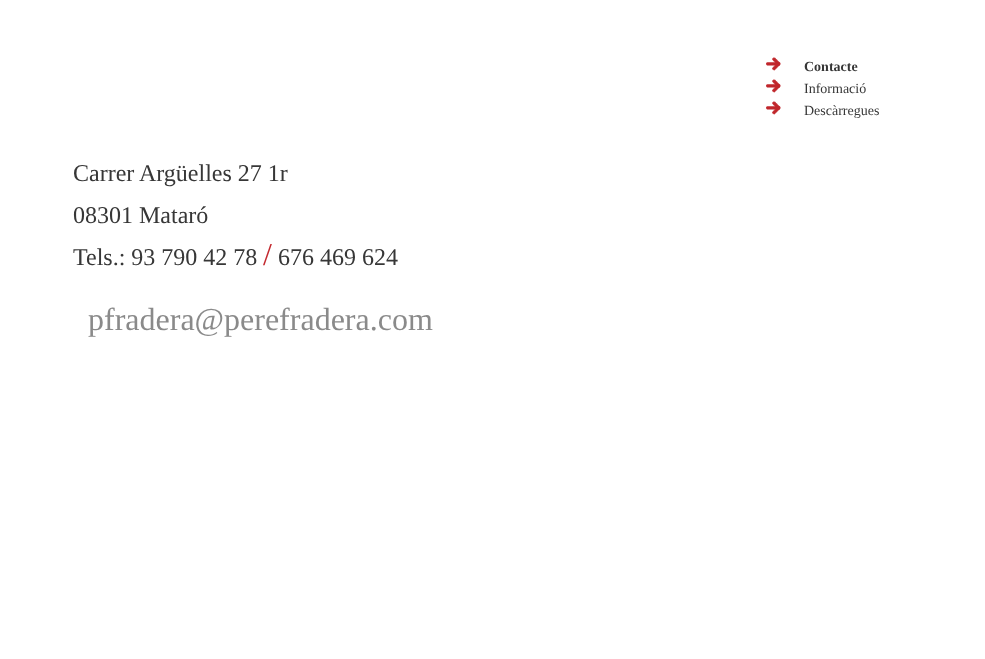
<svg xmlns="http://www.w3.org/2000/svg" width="985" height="659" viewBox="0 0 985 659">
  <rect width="100%" height="100%" fill="#ffffff"/>
  <image x="766" y="57" width="15" height="14" href="img1.png"/>
  <text x="804" y="71" font-family="Liberation Serif" font-size="14" font-weight="bold" fill="#373737">Contacte</text>
  <image x="766" y="79" width="15" height="14" href="img1.png"/>
  <text x="804" y="93" font-family="Liberation Serif" font-size="14" fill="#373737">Informació</text>
  <image x="766" y="101" width="15" height="14" href="img1.png"/>
  <text x="804" y="115" font-family="Liberation Serif" font-size="14" fill="#373737">Descàrregues</text>
  <text x="73" y="181" font-family="Liberation Serif" font-size="24" fill="#373737">Carrer Argüelles 27 1r</text>
  <text x="73" y="223" font-family="Liberation Serif" font-size="24" fill="#373737">08301 Mataró</text>
  <text x="73" y="265" font-family="Liberation Serif" font-size="24" fill="#373737">Tels.: 93 790 42 78</text>
  <text x="263" y="265" font-family="Liberation Serif" font-size="32" fill="#c3282e">/</text>
  <text x="278" y="265" font-family="Liberation Serif" font-size="24" fill="#373737">676 469 624</text>
  <text x="88" y="330" font-family="Liberation Serif" font-size="32" fill="#8a8a8a">pfradera@perefradera.com</text>
</svg>
